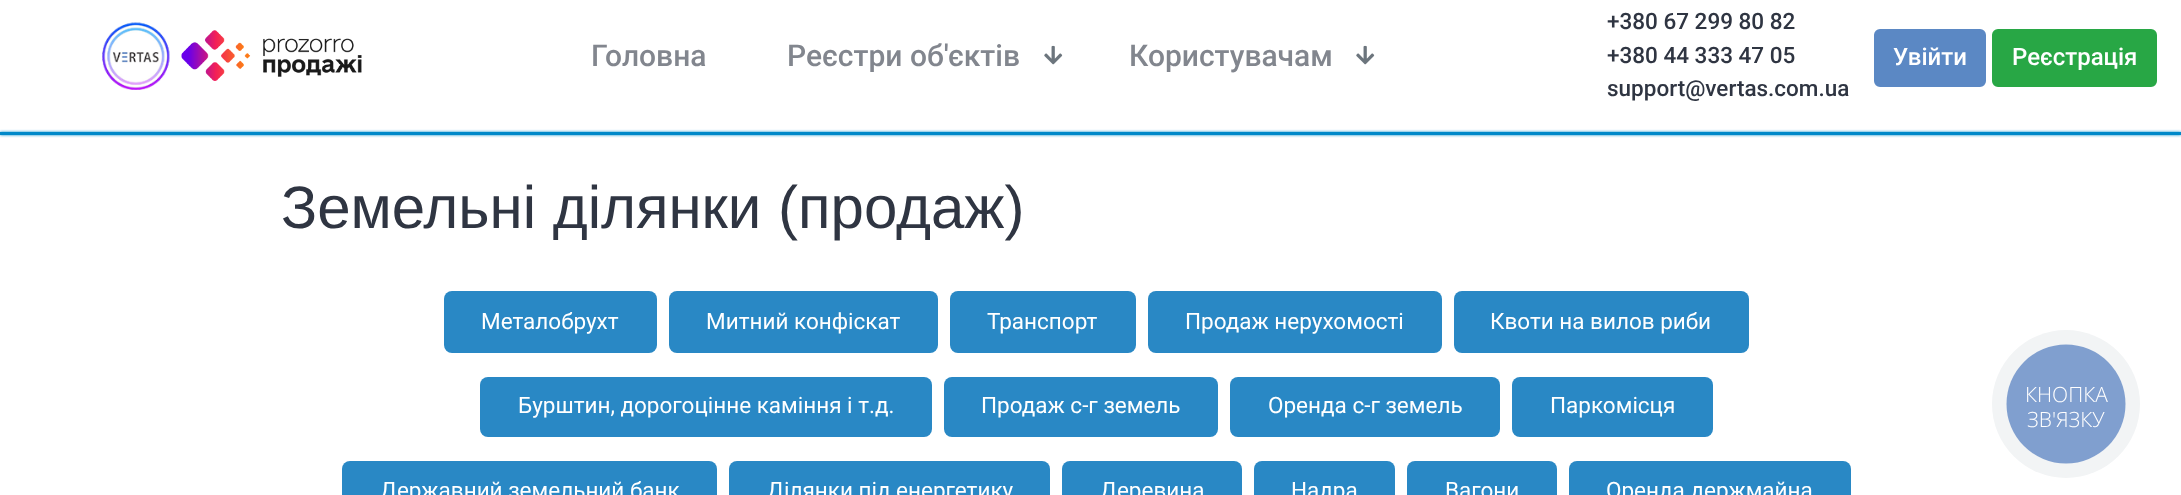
<svg xmlns="http://www.w3.org/2000/svg" width="2181" height="495" viewBox="0 0 2181 495">
  <defs>
    <filter id="blur1" x="-50%" y="-200%" width="200%" height="500%"><feGaussianBlur stdDeviation="1.5"/></filter>
  </defs>
  <rect width="100%" height="100%" fill="#ffffff"/>
  <image x="102" y="22" width="68" height="68" href="img1.png"/>
  <image x="181" y="30" width="181" height="51" href="img2.png"/>
  <text x="591" y="66" font-family="Roboto" font-size="30" font-weight="500" fill="#82868e">Головна</text>
  <text x="787" y="66" font-family="Roboto" font-size="30" font-weight="500" fill="#82868e">Реєстри об'єктів</text>
  <image x="1044" y="45" width="19" height="20" href="img3.png"/>
  <text x="1129" y="66" font-family="Roboto" font-size="30" font-weight="500" fill="#82868e">Користувачам</text>
  <image x="1356" y="45" width="19" height="20" href="img3.png"/>
  <text x="1607" y="29" font-family="Roboto" font-size="22.5" font-weight="500" fill="#2f3542">+380 67 299 80 82</text>
  <text x="1607" y="63" font-family="Roboto" font-size="22.5" font-weight="500" fill="#2f3542">+380 44 333 47 05</text>
  <text x="1607" y="96" font-family="Roboto" font-size="22.5" font-weight="500" fill="#2f3542">support@vertas.com.ua</text>
  <rect x="1875" y="30" width="110" height="56" rx="5" fill="#5b88c4" stroke="#5b88c4" stroke-width="2"/>
  <text x="1893" y="65" font-family="Roboto" font-size="24" font-weight="500" fill="#ffffff">Увійти</text>
  <rect x="1993" y="30" width="163" height="56" rx="5" fill="#28a745" stroke="#28a745" stroke-width="2"/>
  <text x="2012" y="65" font-family="Roboto" font-size="24" font-weight="500" fill="#ffffff">Реєстрація</text>
  <rect x="0" y="132" width="2181" height="3" fill="#0089c9" filter="url(#blur1)"/>
  <rect x="0" y="132" width="2181" height="3" fill="#0089c9"/>
  <text x="281" y="228" font-family="Liberation Sans" font-size="60" fill="#2f3542">Земельні ділянки (продаж)</text>
  <rect x="444" y="291" width="213" height="62" rx="8" fill="#2988c5"/>
  <text x="481" y="329" font-family="Roboto" font-size="22.5" fill="#ffffff">Металобрухт</text>
  <rect x="669" y="291" width="269" height="62" rx="8" fill="#2988c5"/>
  <text x="706" y="329" font-family="Roboto" font-size="22.5" fill="#ffffff">Митний конфіскат</text>
  <rect x="950" y="291" width="186" height="62" rx="8" fill="#2988c5"/>
  <text x="987" y="329" font-family="Roboto" font-size="22.5" fill="#ffffff">Транспорт</text>
  <rect x="1148" y="291" width="294" height="62" rx="8" fill="#2988c5"/>
  <text x="1185" y="329" font-family="Roboto" font-size="22.5" fill="#ffffff">Продаж нерухомості</text>
  <rect x="1454" y="291" width="295" height="62" rx="8" fill="#2988c5"/>
  <text x="1490" y="329" font-family="Roboto" font-size="22.5" fill="#ffffff">Квоти на вилов риби</text>
  <rect x="480" y="377" width="452" height="60" rx="8" fill="#2988c5"/>
  <text x="518" y="413" font-family="Roboto" font-size="22.5" fill="#ffffff">Бурштин, дорогоцінне каміння і т.д.</text>
  <rect x="944" y="377" width="274" height="60" rx="8" fill="#2988c5"/>
  <text x="981" y="413" font-family="Roboto" font-size="22.5" fill="#ffffff">Продаж с-г земель</text>
  <rect x="1230" y="377" width="270" height="60" rx="8" fill="#2988c5"/>
  <text x="1268" y="413" font-family="Roboto" font-size="22.5" fill="#ffffff">Оренда с-г земель</text>
  <rect x="1512" y="377" width="201" height="60" rx="8" fill="#2988c5"/>
  <text x="1550" y="413" font-family="Roboto" font-size="22.5" fill="#ffffff">Паркомісця</text>
  <rect x="342" y="461" width="375" height="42" rx="8" fill="#2988c5"/>
  <text x="380" y="498" font-family="Roboto" font-size="22.5" fill="#ffffff">Державний земельний банк</text>
  <rect x="729" y="461" width="321" height="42" rx="8" fill="#2988c5"/>
  <text x="767" y="498" font-family="Roboto" font-size="22.5" fill="#ffffff">Ділянки під енергетику</text>
  <rect x="1062" y="461" width="180" height="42" rx="8" fill="#2988c5"/>
  <text x="1100" y="498" font-family="Roboto" font-size="22.5" fill="#ffffff">Деревина</text>
  <rect x="1254" y="461" width="141" height="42" rx="8" fill="#2988c5"/>
  <text x="1291" y="498" font-family="Roboto" font-size="22.5" fill="#ffffff">Надра</text>
  <rect x="1407" y="461" width="150" height="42" rx="8" fill="#2988c5"/>
  <text x="1445" y="498" font-family="Roboto" font-size="22.5" fill="#ffffff">Вагони</text>
  <rect x="1569" y="461" width="282" height="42" rx="8" fill="#2988c5"/>
  <text x="1606" y="498" font-family="Roboto" font-size="22.5" fill="#ffffff">Оренда держмайна</text>
  <circle cx="2066" cy="404" r="74" fill="#f2f4f5"/>
  <circle cx="2066" cy="404" r="59.5" fill="#809fcf"/>
  <text x="2025" y="402" font-family="Open Sans" font-size="21" font-weight="300" fill="#ffffff">КНОПКА</text>
  <text x="2027" y="427" font-family="Open Sans" font-size="21" font-weight="300" fill="#ffffff">ЗВ'ЯЗКУ</text>
</svg>
